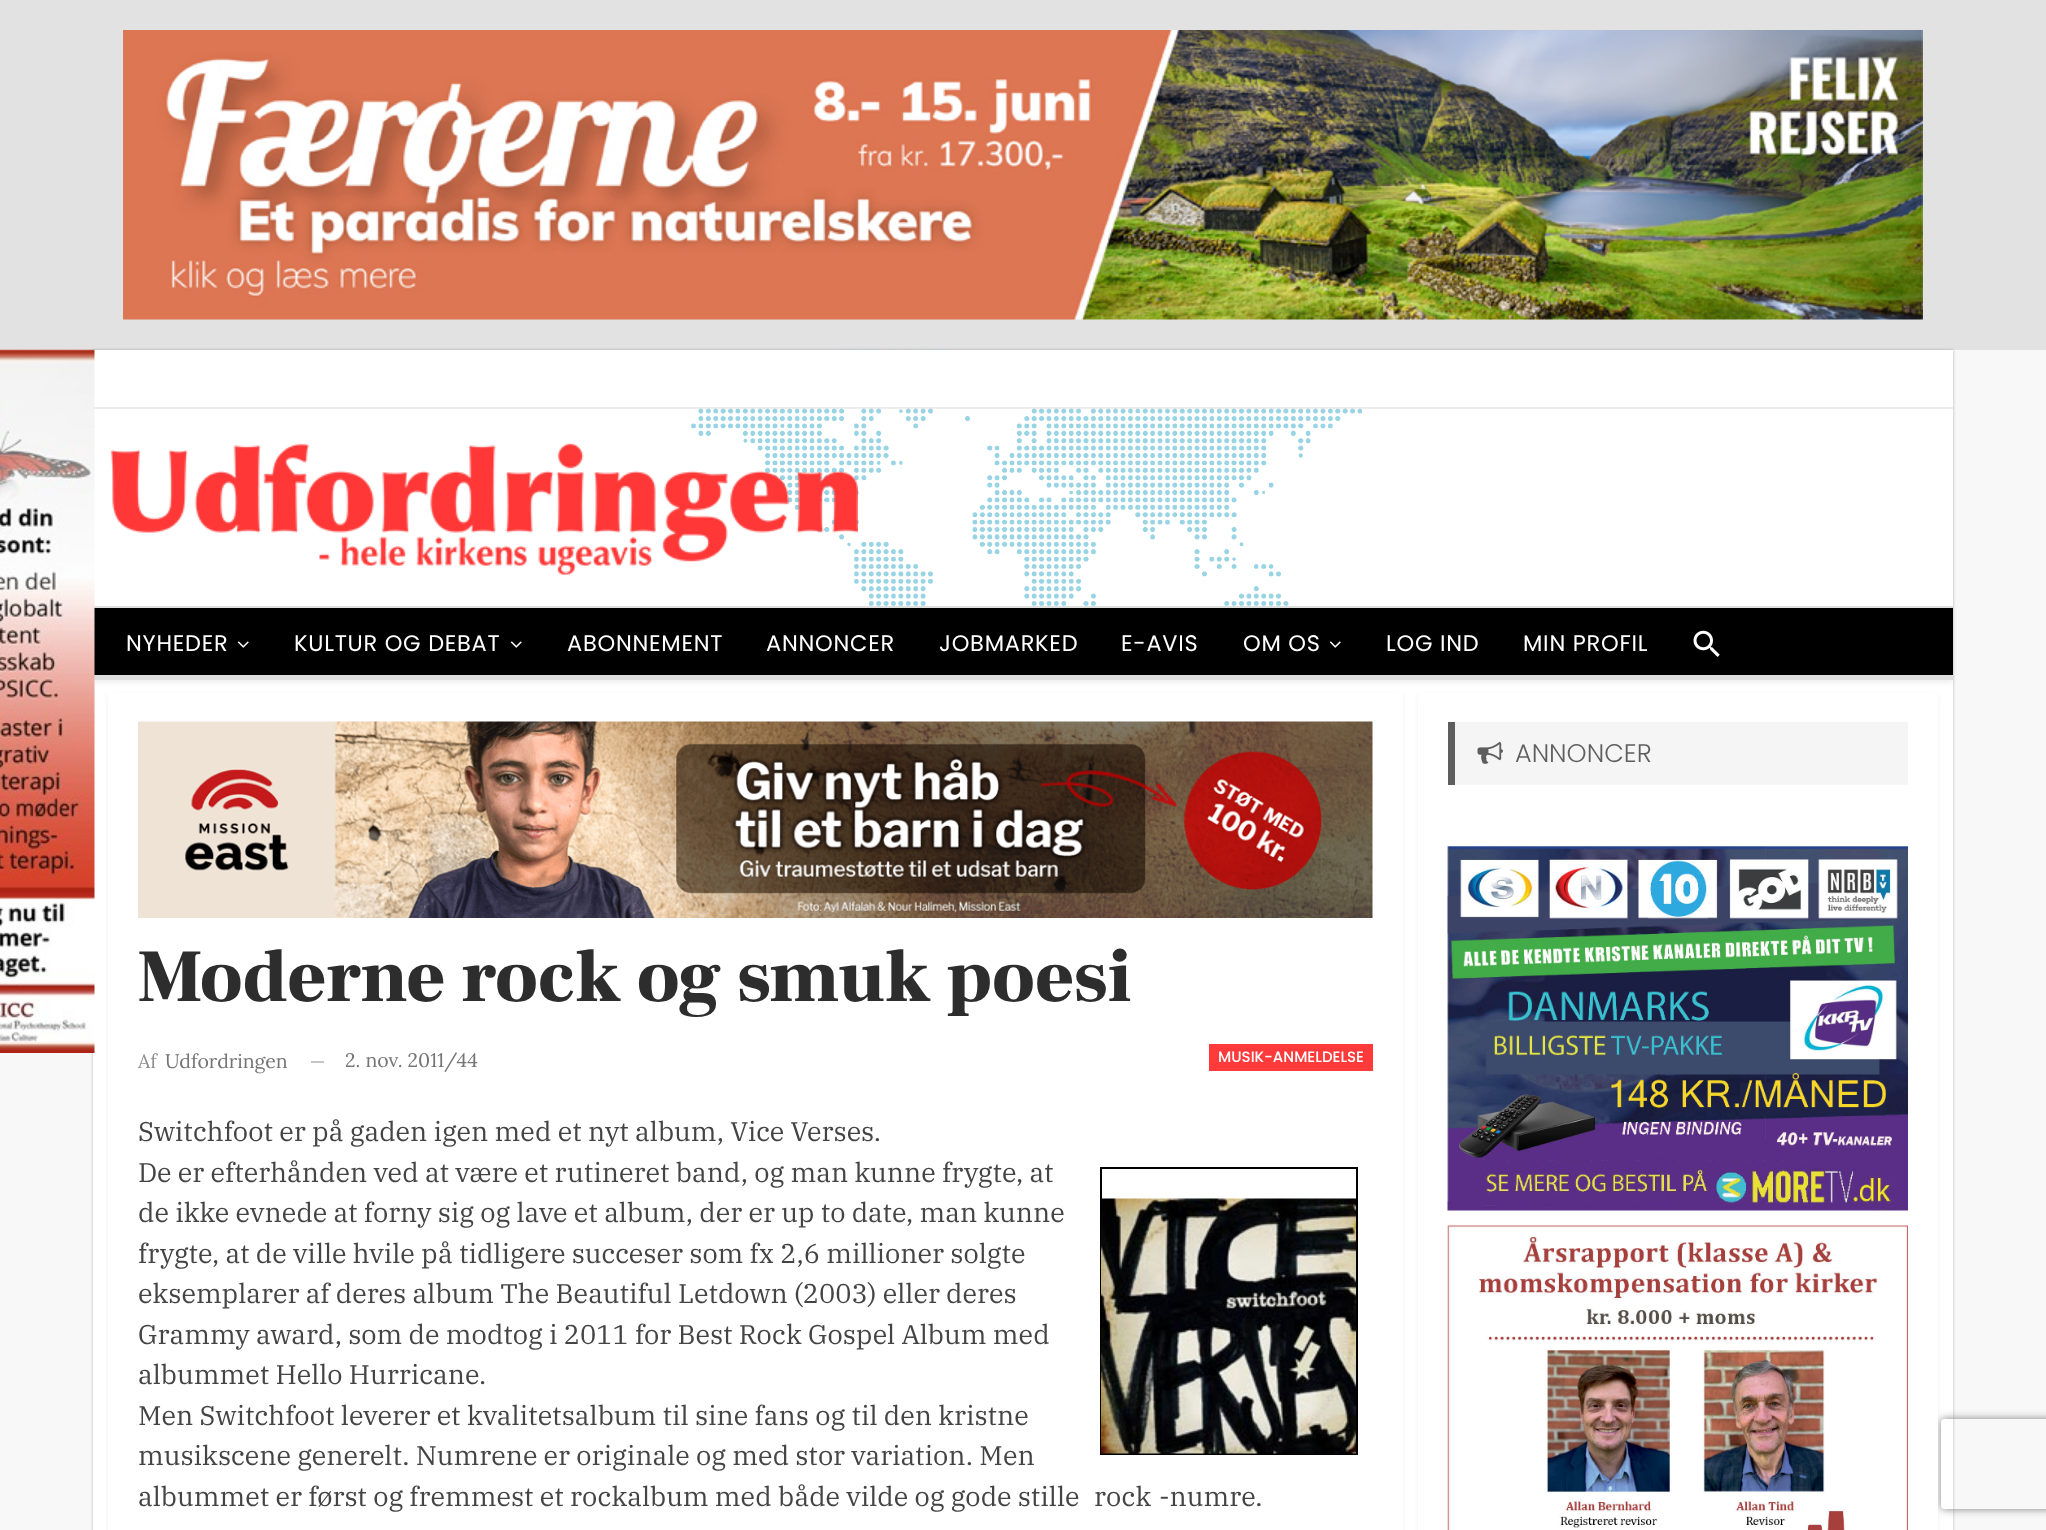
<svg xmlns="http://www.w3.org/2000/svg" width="2046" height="1530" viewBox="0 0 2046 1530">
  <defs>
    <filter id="blur1" x="-50%" y="-200%" width="200%" height="500%"><feGaussianBlur stdDeviation="1.5"/></filter>
    <filter id="blur2" x="-50%" y="-200%" width="200%" height="500%"><feGaussianBlur stdDeviation="2"/></filter>
    <clipPath id="clip1"><path d="M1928 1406H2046V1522H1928ZM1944 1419H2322C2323.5 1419 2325 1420.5 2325 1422V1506C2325 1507.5 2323.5 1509 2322 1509H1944C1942.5 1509 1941 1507.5 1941 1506V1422C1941 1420.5 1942.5 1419 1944 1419Z" clip-rule="evenodd"/></clipPath>
    <filter id="blur3" x="-50%" y="-200%" width="200%" height="500%"><feGaussianBlur stdDeviation="4"/></filter>
  </defs>
  <rect width="100%" height="100%" fill="#f8f8f8"/>
  <rect x="0" y="0" width="2046" height="350" fill="#e2e2e2"/>
  <image x="123" y="30" width="1800" height="290" href="img1.png"/>
  <rect x="93" y="350" width="1860" height="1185" fill="#000000" fill-opacity="0.27" filter="url(#blur1)"/>
  <rect x="93" y="680" width="1860" height="850" fill="#ffffff"/>
  <rect x="93" y="353" width="1860" height="330" fill="#cccccc" fill-opacity="0.3" filter="url(#blur2)"/>
  <rect x="94" y="408" width="1859" height="198" fill="#ffffff"/>
  <image x="691" y="349" width="671" height="257" href="img3.png"/>
  <rect x="94" y="350" width="1859" height="58" fill="#ffffff"/>
  <rect x="93" y="407" width="1860" height="2" fill="#000000" fill-opacity="0.07"/>
  <rect x="94" y="608" width="1859" height="67" fill="#000000"/>
  <rect x="93" y="606" width="1860" height="2" fill="#dedede"/>
  <rect x="93" y="675" width="1860" height="5" fill="#dedede"/>
  <image x="0" y="349" width="95" height="704" href="img2.png"/>
  <image x="110" y="443" width="748" height="132" href="img4.png"/>
  <text x="126" y="651" font-family="Poppins" font-size="22.5" letter-spacing="0.75" fill="#ffffff">NYHEDER</text>
  <image x="237" y="641" width="12" height="7" href="img5.png"/>
  <text x="294" y="651" font-family="Poppins" font-size="22.5" letter-spacing="0.75" fill="#ffffff">KULTUR OG DEBAT</text>
  <image x="510" y="641" width="12" height="7" href="img5.png"/>
  <text x="567" y="651" font-family="Poppins" font-size="22.5" letter-spacing="0.75" fill="#ffffff">ABONNEMENT</text>
  <text x="766" y="651" font-family="Poppins" font-size="22.5" letter-spacing="0.75" fill="#ffffff">ANNONCER</text>
  <text x="939" y="651" font-family="Poppins" font-size="22.5" letter-spacing="0.75" fill="#ffffff">JOBMARKED</text>
  <text x="1121" y="651" font-family="Poppins" font-size="22.5" letter-spacing="0.75" fill="#ffffff">E-AVIS</text>
  <text x="1243" y="651" font-family="Poppins" font-size="22.5" letter-spacing="0.75" fill="#ffffff">OM OS</text>
  <image x="1329" y="641" width="12" height="7" href="img5.png"/>
  <text x="1386" y="651" font-family="Poppins" font-size="22.5" letter-spacing="0.75" fill="#ffffff">LOG IND</text>
  <text x="1523" y="651" font-family="Poppins" font-size="22.5" letter-spacing="0.75" fill="#ffffff">MIN PROFIL</text>
  <image x="1693" y="630" width="27" height="27" href="img6.png"/>
  <rect x="1418" y="695" width="520" height="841" fill="#cccccc" fill-opacity="0.3" filter="url(#blur2)"/>
  <g clip-path="url(#clip1)">
    <rect x="1941" y="1419" width="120" height="90" rx="3" fill="#808080" filter="url(#blur3)"/>
  </g>
  <rect x="1418" y="693" width="520" height="837" fill="#ffffff"/>
  <rect x="1455" y="722" width="453" height="63" fill="#f5f5f5"/>
  <rect x="1448" y="722" width="7" height="63" fill="#5e5e5e"/>
  <image x="1477" y="742" width="26" height="22" href="img7.png"/>
  <text x="1515" y="762" font-family="Poppins" font-size="25.5" font-weight="300" fill="#5e5e5e">ANNONCER</text>
  <image x="1447" y="846" width="461" height="365" href="img8.png"/>
  <image x="1447" y="1225" width="461" height="305" href="img9.png"/>
  <rect x="108" y="695" width="1295" height="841" fill="#cccccc" fill-opacity="0.3" filter="url(#blur2)"/>
  <rect x="108" y="693" width="1295" height="837" fill="#ffffff"/>
  <image x="138" y="721" width="1235" height="197" href="img10.png"/>
  <text x="138" y="1001" font-family="Frank Ruhl Libre" font-size="75" font-weight="900" fill="#2d2d2d">Moderne rock og smuk poesi</text>
  <text x="138" y="1068" font-family="Lora" font-size="19.5" fill="#8f8f8f">Af</text>
  <text x="165" y="1068" font-family="Lora" font-size="19.5" fill="#757575">Udfordringen</text>
  <rect x="311" y="1061" width="13" height="2" fill="#c4c4c4"/>
  <text x="345" y="1067" font-family="Lora" font-size="19.5" fill="#757575">2. nov. 2011/44</text>
  <rect x="1209" y="1044" width="164" height="27" fill="#ff3a3a"/>
  <text x="1218" y="1062" font-family="Poppins" font-size="15" font-weight="500" fill="#ffffff">MUSIK-ANMELDELSE</text>
  <text x="138" y="1141" font-family="IBM Plex Serif" font-size="27" fill="#444444">Switchfoot er på gaden igen med et nyt album, Vice Verses.</text>
  <text x="138" y="1182" font-family="IBM Plex Serif" font-size="27" fill="#444444">De er efterhånden ved at være et rutineret band, og man kunne frygte, at</text>
  <rect x="1101" y="1168" width="256" height="286" fill="none" stroke="#000000" stroke-width="2"/>
  <image x="1101" y="1198" width="255" height="256" href="img11.png"/>
  <text x="138" y="1222" font-family="IBM Plex Serif" font-size="27" fill="#444444">de ikke evnede at forny sig og lave et album, der er up to date, man kunne</text>
  <text x="138" y="1263" font-family="IBM Plex Serif" font-size="27" fill="#444444">frygte, at de ville hvile på tidligere succeser som fx 2,6 millioner solgte</text>
  <text x="138" y="1303" font-family="IBM Plex Serif" font-size="27" fill="#444444">eksemplarer af deres album The Beautiful Letdown (2003) eller deres</text>
  <text x="138" y="1344" font-family="IBM Plex Serif" font-size="27" fill="#444444">Grammy award, som de modtog i 2011 for Best Rock Gospel Album med</text>
  <text x="138" y="1384" font-family="IBM Plex Serif" font-size="27" fill="#444444">albummet Hello Hurricane.</text>
  <text x="138" y="1425" font-family="IBM Plex Serif" font-size="27" fill="#444444">Men Switchfoot leverer et kvalitetsalbum til sine fans og til den kristne</text>
  <text x="138" y="1465" font-family="IBM Plex Serif" font-size="27" fill="#444444">musikscene generelt. Numrene er originale og med stor variation. Men</text>
  <text x="138" y="1506" font-family="IBM Plex Serif" font-size="27" fill="#444444">albummet er først og fremmest et rockalbum med både vilde og gode stille</text>
  <text x="1094" y="1506" font-family="IBM Plex Serif" font-size="27" fill="#444444">rock</text>
  <text x="1159" y="1506" font-family="IBM Plex Serif" font-size="27" fill="#444444">-numre.</text>
</svg>
